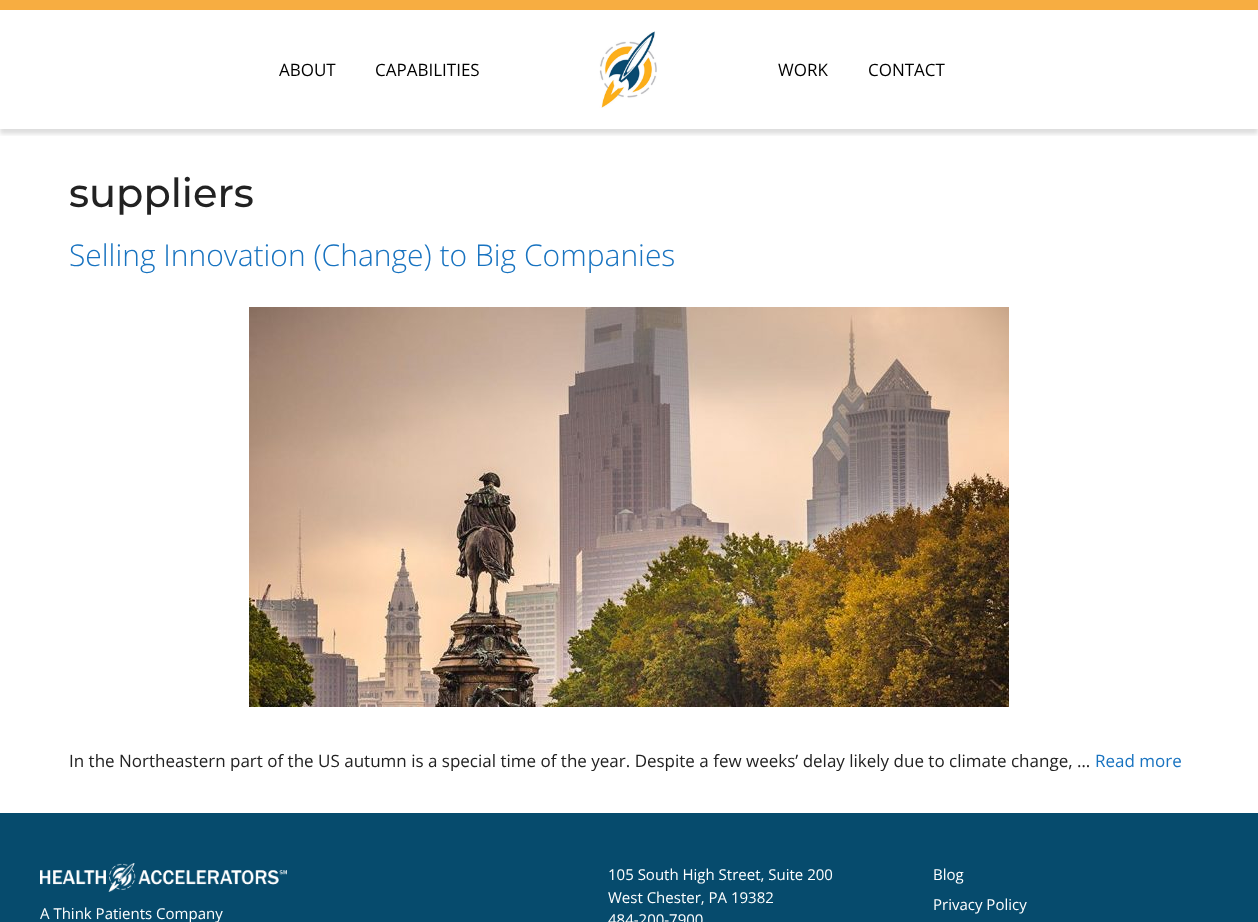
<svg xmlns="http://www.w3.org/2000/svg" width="1258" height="922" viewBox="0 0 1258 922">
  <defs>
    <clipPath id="clip1"><rect x="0" y="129" width="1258" height="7"/></clipPath>
    <filter id="blur1" x="-50%" y="-200%" width="200%" height="500%"><feGaussianBlur stdDeviation="2"/></filter>
  </defs>
  <rect width="100%" height="100%" fill="#ffffff"/>
  <rect x="0" y="0" width="1258" height="10" fill="#f7ad41"/>
  <g clip-path="url(#clip1)">
    <rect x="0" y="15" width="1258" height="119" fill="#000000" fill-opacity="0.13" filter="url(#blur1)"/>
  </g>
  <text x="279" y="76" font-family="Open Sans" font-size="17" fill="#000000">ABOUT</text>
  <text x="375" y="76" font-family="Open Sans" font-size="17" fill="#000000">CAPABILITIES</text>
  <image x="599" y="31" width="58" height="77" href="img1.png"/>
  <text x="778" y="76" font-family="Open Sans" font-size="17" fill="#000000">WORK</text>
  <text x="868" y="76" font-family="Open Sans" font-size="17" fill="#000000">CONTACT</text>
  <text x="69" y="207" font-family="Montserrat" font-size="40" font-weight="500" fill="#222222">suppliers</text>
  <text x="69" y="266" font-family="Open Sans" font-size="30" font-weight="300" fill="#1873c0">Selling Innovation (Change) to Big Companies</text>
  <image x="249" y="307" width="760" height="400" href="img2.png"/>
  <text x="69" y="767" font-family="Open Sans" font-size="17" fill="#222222">In the Northeastern part of the US autumn is a special time of the year. Despite a few weeks’ delay likely due to climate change, …</text>
  <text x="1095" y="767" font-family="Open Sans" font-size="17" fill="#1873c0">Read more</text>
  <rect x="0" y="813" width="1258" height="109" fill="#064b6d"/>
  <image x="40" y="863" width="247" height="29" href="img3.png"/>
  <text x="40" y="919" font-family="Open Sans" font-size="15" fill="#ffffff">A Think Patients Company</text>
  <text x="608" y="880" font-family="Open Sans" font-size="15" fill="#ffffff">105 South High Street, Suite 200</text>
  <text x="608" y="903" font-family="Open Sans" font-size="15" fill="#ffffff">West Chester, PA 19382</text>
  <text x="608" y="925" font-family="Open Sans" font-size="15" fill="#ffffff">484-200-7900</text>
  <text x="933" y="880" font-family="Open Sans" font-size="15" fill="#ffffff">Blog</text>
  <text x="933" y="910" font-family="Open Sans" font-size="15" fill="#ffffff">Privacy Policy</text>
</svg>
